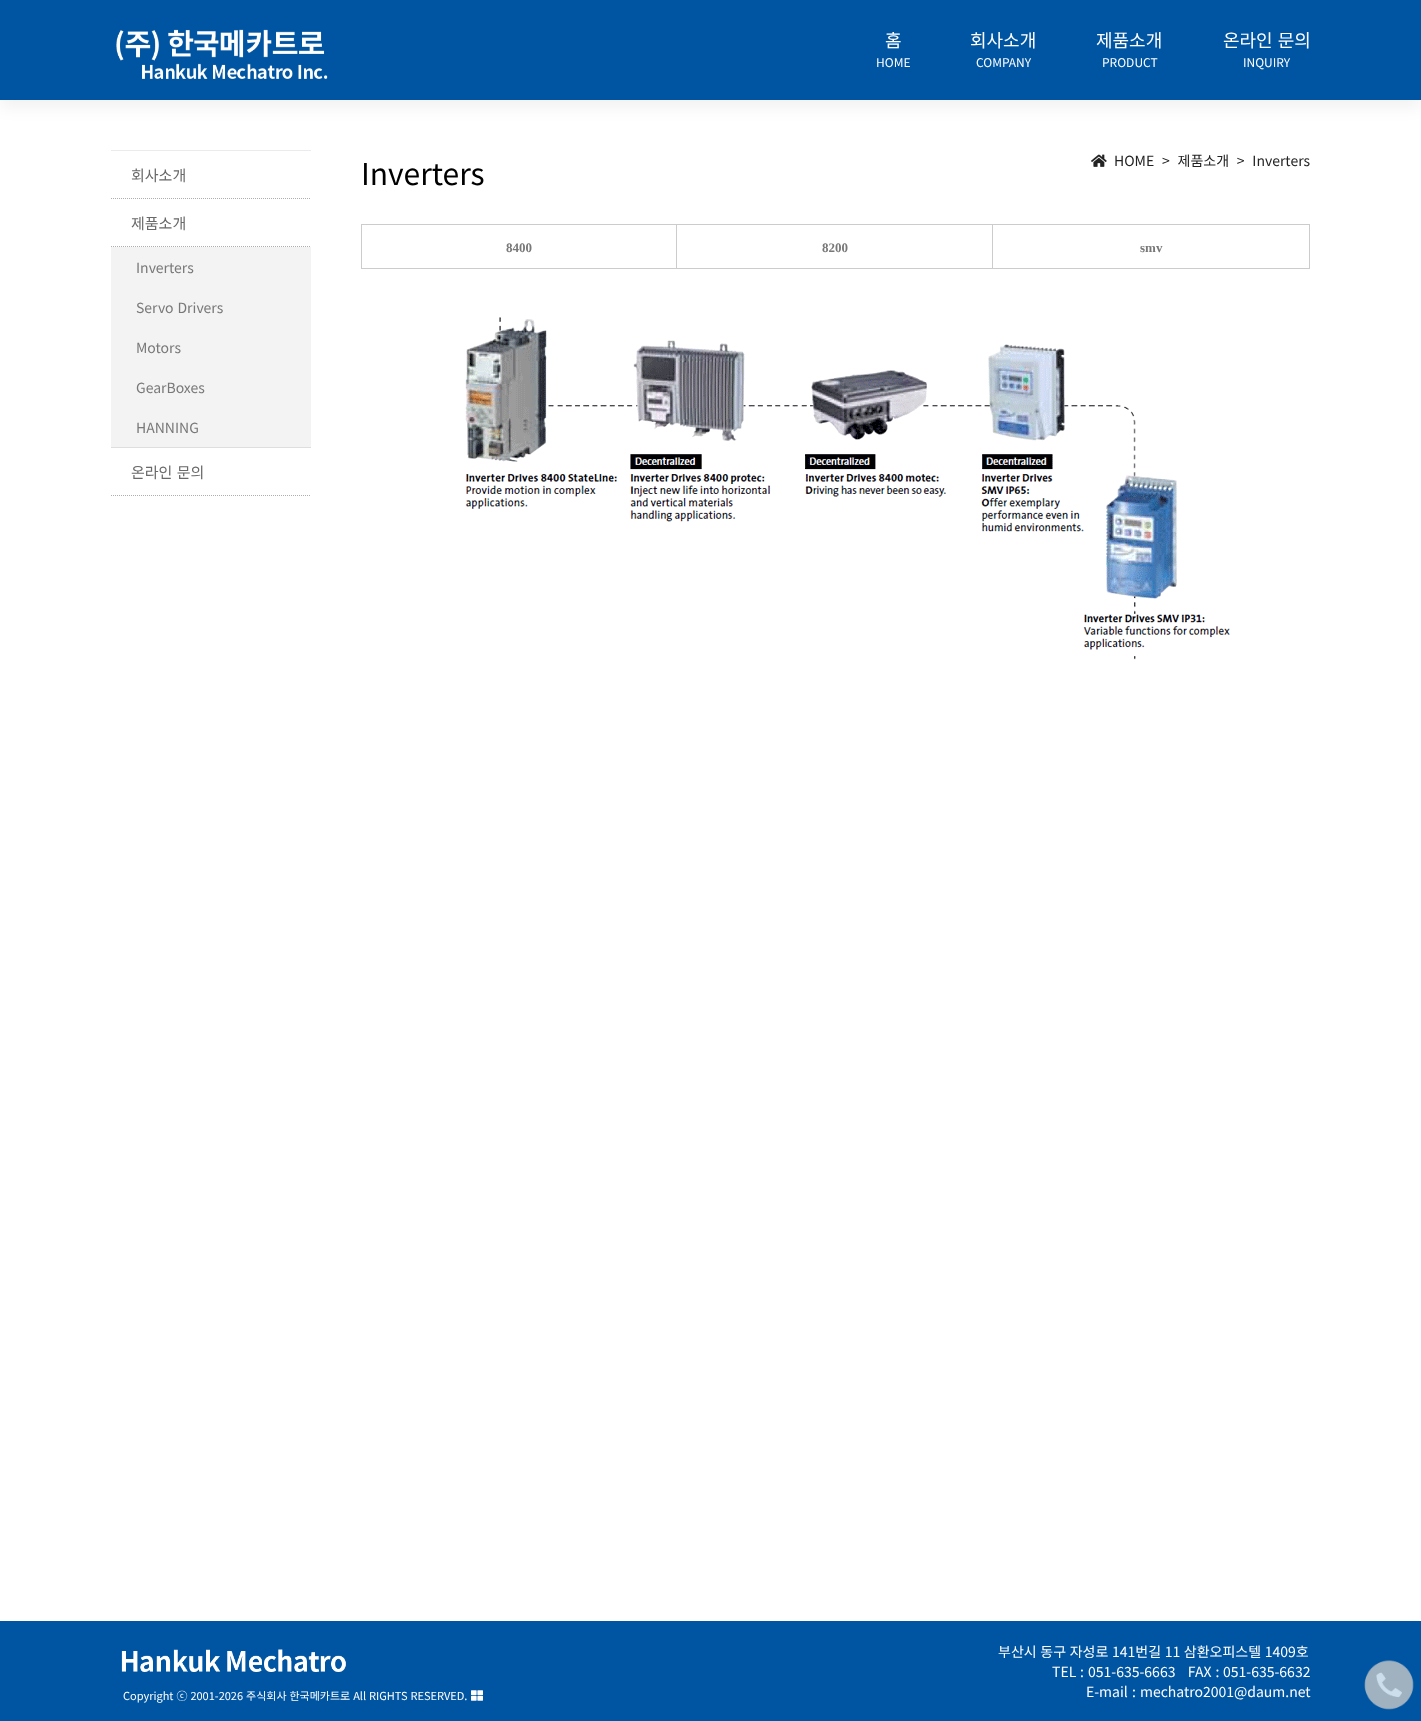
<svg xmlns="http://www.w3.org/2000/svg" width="1421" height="1721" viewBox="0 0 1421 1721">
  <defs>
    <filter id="blur1" x="-50%" y="-200%" width="200%" height="500%"><feGaussianBlur stdDeviation="7.5"/></filter>
  </defs>
  <rect width="100%" height="100%" fill="#ffffff"/>
  <rect x="0" y="8" width="1421" height="100" fill="#000000" fill-opacity="0.05" filter="url(#blur1)"/>
  <rect x="0" y="0" width="1421" height="100" fill="#0055a2"/>
  <image x="116" y="29" width="212" height="50" href="img1.png"/>
  <text x="885" y="47" font-family="Noto Sans KR" font-size="18" font-weight="100" fill="#ffffff">홈</text>
  <text x="876" y="67" font-family="Noto Sans KR" font-size="12" font-weight="100" fill="#ffffff">HOME</text>
  <text x="970" y="47" font-family="Noto Sans KR" font-size="18" font-weight="100" fill="#ffffff">회사소개</text>
  <text x="976" y="67" font-family="Noto Sans KR" font-size="12" font-weight="100" fill="#ffffff">COMPANY</text>
  <text x="1096" y="47" font-family="Noto Sans KR" font-size="18" font-weight="100" fill="#ffffff">제품소개</text>
  <text x="1102" y="67" font-family="Noto Sans KR" font-size="12" font-weight="100" fill="#ffffff">PRODUCT</text>
  <text x="1223" y="47" word-spacing="1" font-family="Noto Sans KR" font-size="18" font-weight="100" fill="#ffffff">온라인 문의</text>
  <text x="1243" y="67" font-family="Noto Sans KR" font-size="12" font-weight="100" fill="#ffffff">INQUIRY</text>
  <rect x="111" y="150" width="200" height="1" fill="#e9ebee"/>
  <image x="111" y="198" width="199" height="1" href="img2.png"/>
  <text x="131" y="181" font-family="Noto Sans KR" font-size="15" font-weight="100" fill="#696969">회사소개</text>
  <image x="111" y="246" width="199" height="1" href="img2.png"/>
  <text x="131" y="229" font-family="Noto Sans KR" font-size="15" font-weight="100" fill="#696969">제품소개</text>
  <rect x="111" y="247" width="200" height="200" fill="#f3f3f3"/>
  <rect x="111" y="447" width="200" height="1" fill="#dedede"/>
  <text x="136" y="273" font-family="Noto Sans KR" font-size="14" font-weight="100" fill="#787878">Inverters</text>
  <text x="136" y="313" word-spacing="0.75" font-family="Noto Sans KR" font-size="14" font-weight="100" fill="#787878">Servo Drivers</text>
  <text x="136" y="353" font-family="Noto Sans KR" font-size="14" font-weight="100" fill="#787878">Motors</text>
  <text x="136" y="393" font-family="Noto Sans KR" font-size="14" font-weight="100" fill="#787878">GearBoxes</text>
  <text x="136" y="433" font-family="Noto Sans KR" font-size="14" font-weight="100" fill="#787878">HANNING</text>
  <image x="111" y="495" width="199" height="1" href="img2.png"/>
  <text x="131" y="478" word-spacing="1" font-family="Noto Sans KR" font-size="15" font-weight="100" fill="#696969">온라인 문의</text>
  <image x="1091" y="154" width="16" height="13" href="img3.png"/>
  <text x="1114" y="166" word-spacing="0.75" font-family="Noto Sans KR" font-size="14" font-weight="100" fill="#232323" xml:space="preserve">HOME  &gt;  제품소개  &gt;  Inverters</text>
  <text x="361" y="185" font-family="Noto Sans KR" font-size="30" font-weight="100" fill="#000000">Inverters</text>
  <rect x="361.5" y="224.5" width="315" height="44" fill="none" stroke="#cccccc"/>
  <text x="506" y="252" font-family="Liberation Serif" font-size="13" font-weight="bold" fill="#787878">8400</text>
  <rect x="677" y="224" width="633" height="1" fill="#cccccc"/>
  <rect x="992" y="224" width="1" height="45" fill="#cccccc"/>
  <rect x="677" y="268" width="316" height="1" fill="#cccccc"/>
  <text x="822" y="252" font-family="Liberation Serif" font-size="13" font-weight="bold" fill="#787878">8200</text>
  <rect x="1309" y="224" width="1" height="45" fill="#cccccc"/>
  <rect x="993" y="268" width="317" height="1" fill="#cccccc"/>
  <text x="1140" y="252" font-family="Liberation Serif" font-size="13" font-weight="bold" fill="#787878">smv</text>
  <image x="465" y="317" width="765" height="343" href="img4.png"/>
  <rect x="0" y="1621" width="1421" height="100" fill="#0055a2"/>
  <image x="121" y="1649" width="225" height="23" href="img5.png"/>
  <text x="123" y="1700" word-spacing="0.5" font-family="Noto Sans KR" font-size="11" font-weight="100" fill="#ffffff">Copyright ⓒ 2001-2026 주식회사 한국메카트로 All RIGHTS RESERVED.</text>
  <image x="471" y="1690" width="12" height="11" href="img6.png"/>
  <text x="998" y="1657" word-spacing="0.5" font-family="Noto Sans KR" font-size="14" font-weight="100" fill="#ffffff">부산시 동구 자성로 141번길 11 삼환오피스텔 1409호</text>
  <text x="1052" y="1677" word-spacing="0.75" font-family="Noto Sans KR" font-size="14" font-weight="100" fill="#ffffff">TEL :</text>
  <text x="1088" y="1677" word-spacing="1" font-family="Noto Sans KR" font-size="14" font-weight="100" fill="#ffffff" xml:space="preserve">051-635-6663   FAX :</text>
  <text x="1223" y="1677" font-family="Noto Sans KR" font-size="14" font-weight="100" fill="#ffffff">051-635-6632</text>
  <text x="1086" y="1697" word-spacing="1" font-family="Noto Sans KR" font-size="14" font-weight="100" fill="#ffffff">E-mail :</text>
  <text x="1140" y="1697" font-family="Noto Sans KR" font-size="14" font-weight="100" fill="#ffffff">mechatro2001@daum.net</text>
  <image x="1364" y="1660" width="50" height="50" href="img7.png"/>
</svg>
